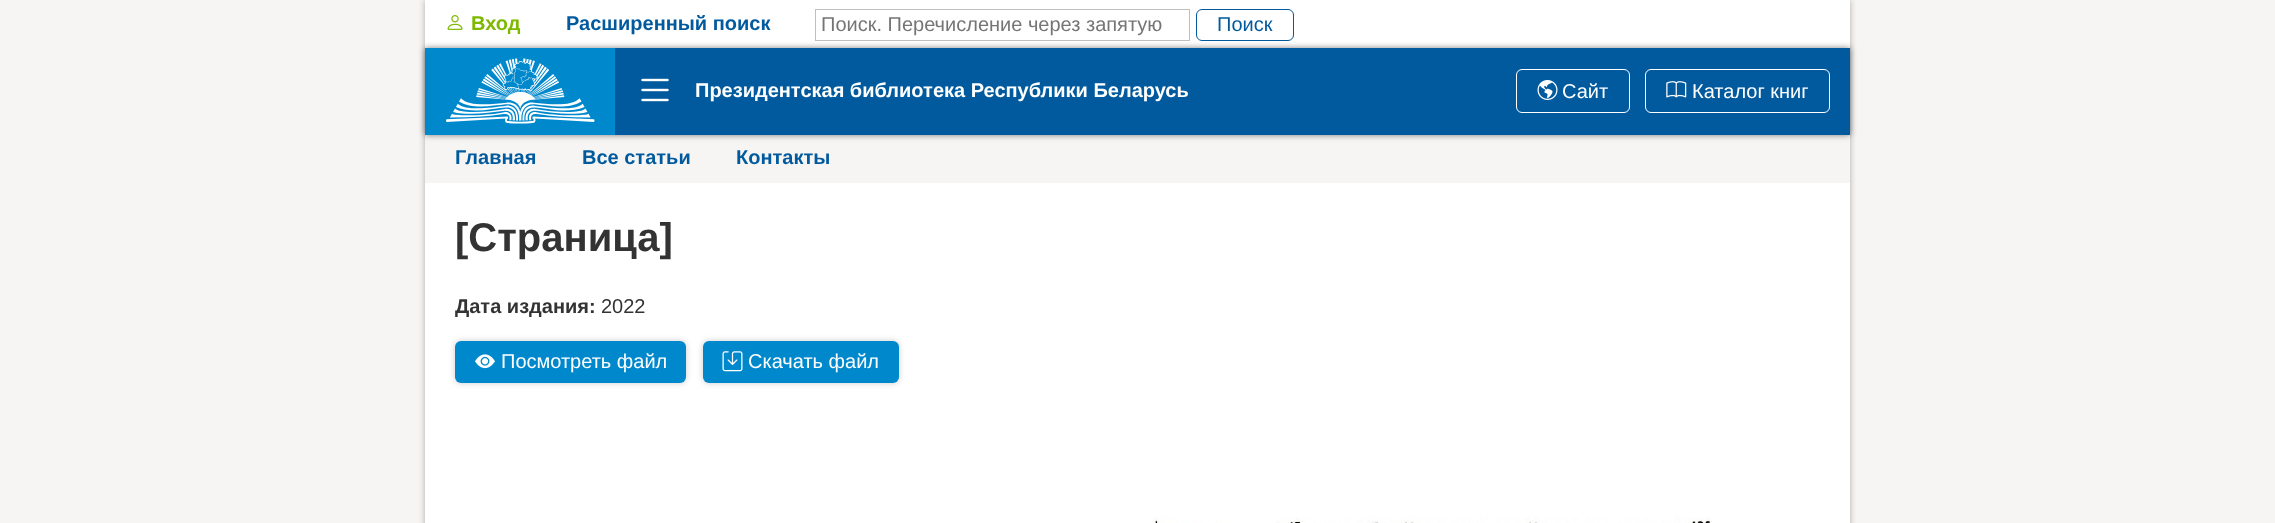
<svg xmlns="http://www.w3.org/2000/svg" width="2275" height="523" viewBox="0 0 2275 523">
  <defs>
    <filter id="blur1" x="-50%" y="-200%" width="200%" height="500%"><feGaussianBlur stdDeviation="3"/></filter>
  </defs>
  <rect width="100%" height="100%" fill="#f6f5f3"/>
  <rect x="425" y="0" width="1425" height="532" fill="#000000" fill-opacity="0.3" filter="url(#blur1)"/>
  <rect x="425" y="0" width="1425" height="523" fill="#ffffff"/>
  <image x="447" y="15" width="16" height="15" href="img1.png"/>
  <text x="471" y="30" font-family="Liberation Sans" font-size="20" font-weight="bold" fill="#7eb900">Вход</text>
  <text x="566" y="30" font-family="Liberation Sans" font-size="20" font-weight="bold" fill="#005a9d">Расширенный поиск</text>
  <rect x="815.5" y="9.5" width="374" height="31" fill="none" stroke="#c0c0c0"/>
  <text x="821" y="31" font-family="Liberation Sans" font-size="20" fill="#757575">Поиск. Перечисление через запятую</text>
  <rect x="1196.5" y="9.5" width="97" height="31" rx="5.5" fill="none" stroke="#005a9d"/>
  <text x="1217" y="31" font-family="Liberation Sans" font-size="20" fill="#005a9d">Поиск</text>
  <rect x="425" y="135" width="1425" height="48" fill="#f6f5f3"/>
  <rect x="425" y="48" width="1425" height="87" fill="#000000" fill-opacity="0.5" filter="url(#blur1)"/>
  <rect x="615" y="48" width="1235" height="87" fill="#005a9d"/>
  <rect x="425" y="48" width="190" height="87" fill="#0088cd"/>
  <image x="446" y="58" width="149" height="66" href="img2.png"/>
  <image x="641" y="78" width="28" height="24" href="img3.png"/>
  <text x="695" y="97" font-family="Liberation Sans" font-size="20" font-weight="bold" fill="#ffffff">Президентская библиотека Республики Беларусь</text>
  <rect x="1516.5" y="69.5" width="113" height="43" rx="5.5" fill="none" stroke="#ffffff"/>
  <image x="1537" y="80" width="21" height="20" href="img4.png"/>
  <text x="1562" y="98" font-family="Liberation Sans" font-size="20" fill="#ffffff">Сайт</text>
  <rect x="1645.5" y="69.5" width="184" height="43" rx="5.5" fill="none" stroke="#ffffff"/>
  <image x="1666" y="81" width="21" height="17" href="img5.png"/>
  <text x="1692" y="98" font-family="Liberation Sans" font-size="20" fill="#ffffff">Каталог книг</text>
  <text x="455" y="164" font-family="Liberation Sans" font-size="20" font-weight="bold" fill="#005a9d">Главная</text>
  <text x="582" y="164" font-family="Liberation Sans" font-size="20" font-weight="bold" fill="#005a9d">Все статьи</text>
  <text x="736" y="164" font-family="Liberation Sans" font-size="20" font-weight="bold" fill="#005a9d">Контакты</text>
  <text x="455" y="251" font-family="Liberation Sans" font-size="40" font-weight="bold" fill="#333333">[Страница]</text>
  <text x="455" y="313" font-family="Liberation Sans" font-size="20" font-weight="bold" fill="#333333">Дата издания:</text>
  <text x="601" y="313" font-family="Liberation Sans" font-size="20" fill="#333333">2022</text>
  <rect x="455" y="341" width="231" height="42" rx="6" fill="#000000" fill-opacity="0.2" filter="url(#blur1)"/>
  <rect x="455" y="341" width="231" height="42" rx="6" fill="#0088cd"/>
  <image x="475" y="354" width="20" height="15" href="img6.png"/>
  <text x="501" y="368" font-family="Liberation Sans" font-size="20" fill="#ffffff">Посмотреть файл</text>
  <rect x="703" y="341" width="196" height="42" rx="6" fill="#000000" fill-opacity="0.2" filter="url(#blur1)"/>
  <rect x="703" y="341" width="196" height="42" rx="6" fill="#0088cd"/>
  <image x="722" y="351" width="21" height="21" href="img7.png"/>
  <text x="748" y="368" font-family="Liberation Sans" font-size="20" fill="#ffffff">Скачать файл</text>
  <image x="1153" y="517" width="559" height="6" href="img8.png"/>
</svg>
